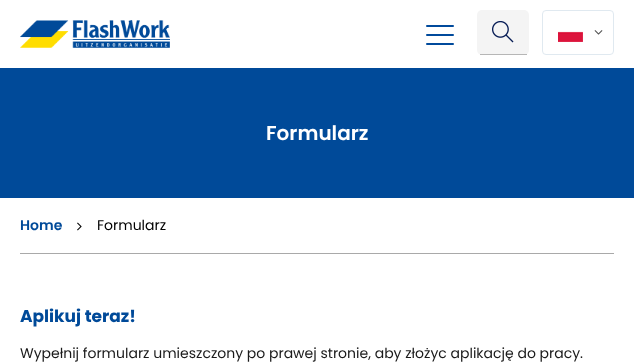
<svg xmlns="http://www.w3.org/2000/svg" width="634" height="363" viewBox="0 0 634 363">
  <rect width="100%" height="100%" fill="#ffffff"/>
  <image x="20" y="20" width="150" height="28" href="img1.png"/>
  <rect x="426" y="34" width="28" height="2" rx="1" fill="#004a9c"/>
  <rect x="426" y="25" width="28" height="2" rx="1" fill="#004a9c"/>
  <rect x="426" y="43" width="28" height="2" rx="1" fill="#004a9c"/>
  <rect x="477" y="10" width="52" height="45" rx="5" fill="#f4f4f4"/>
  <rect x="480" y="54" width="47" height="1" fill="#b6b6b6"/>
  <image x="492" y="21" width="22" height="22" href="img2.png"/>
  <rect x="542.5" y="10.5" width="71" height="44" rx="3.5" fill="none" stroke="#e0e9f0"/>
  <image x="558" y="31" width="25" height="11" href="img3.png"/>
  <image x="594" y="30" width="9" height="5" href="img4.png"/>
  <rect x="0" y="68" width="634" height="130" fill="#004a99"/>
  <text x="266" y="140" font-family="Poppins" font-size="20" font-weight="600" fill="#ffffff">Formularz</text>
  <rect x="20" y="253" width="594" height="1" fill="#a9a9a9"/>
  <text x="20" y="230" font-family="Poppins" font-size="14" font-weight="600" fill="#004a99">Home</text>
  <image x="77" y="222" width="5" height="9" href="img5.png"/>
  <text x="97" y="230" font-family="Poppins" font-size="14" fill="#000000">Formularz</text>
  <text x="20" y="322" font-family="Poppins" font-size="17" font-weight="bold" fill="#004a99">Aplikuj teraz!</text>
  <text x="20" y="358" font-family="Poppins" font-size="14" fill="#1a1a1a">Wypełnij formularz umieszczony po prawej stronie, aby złożyc aplikację do pracy.</text>
</svg>
